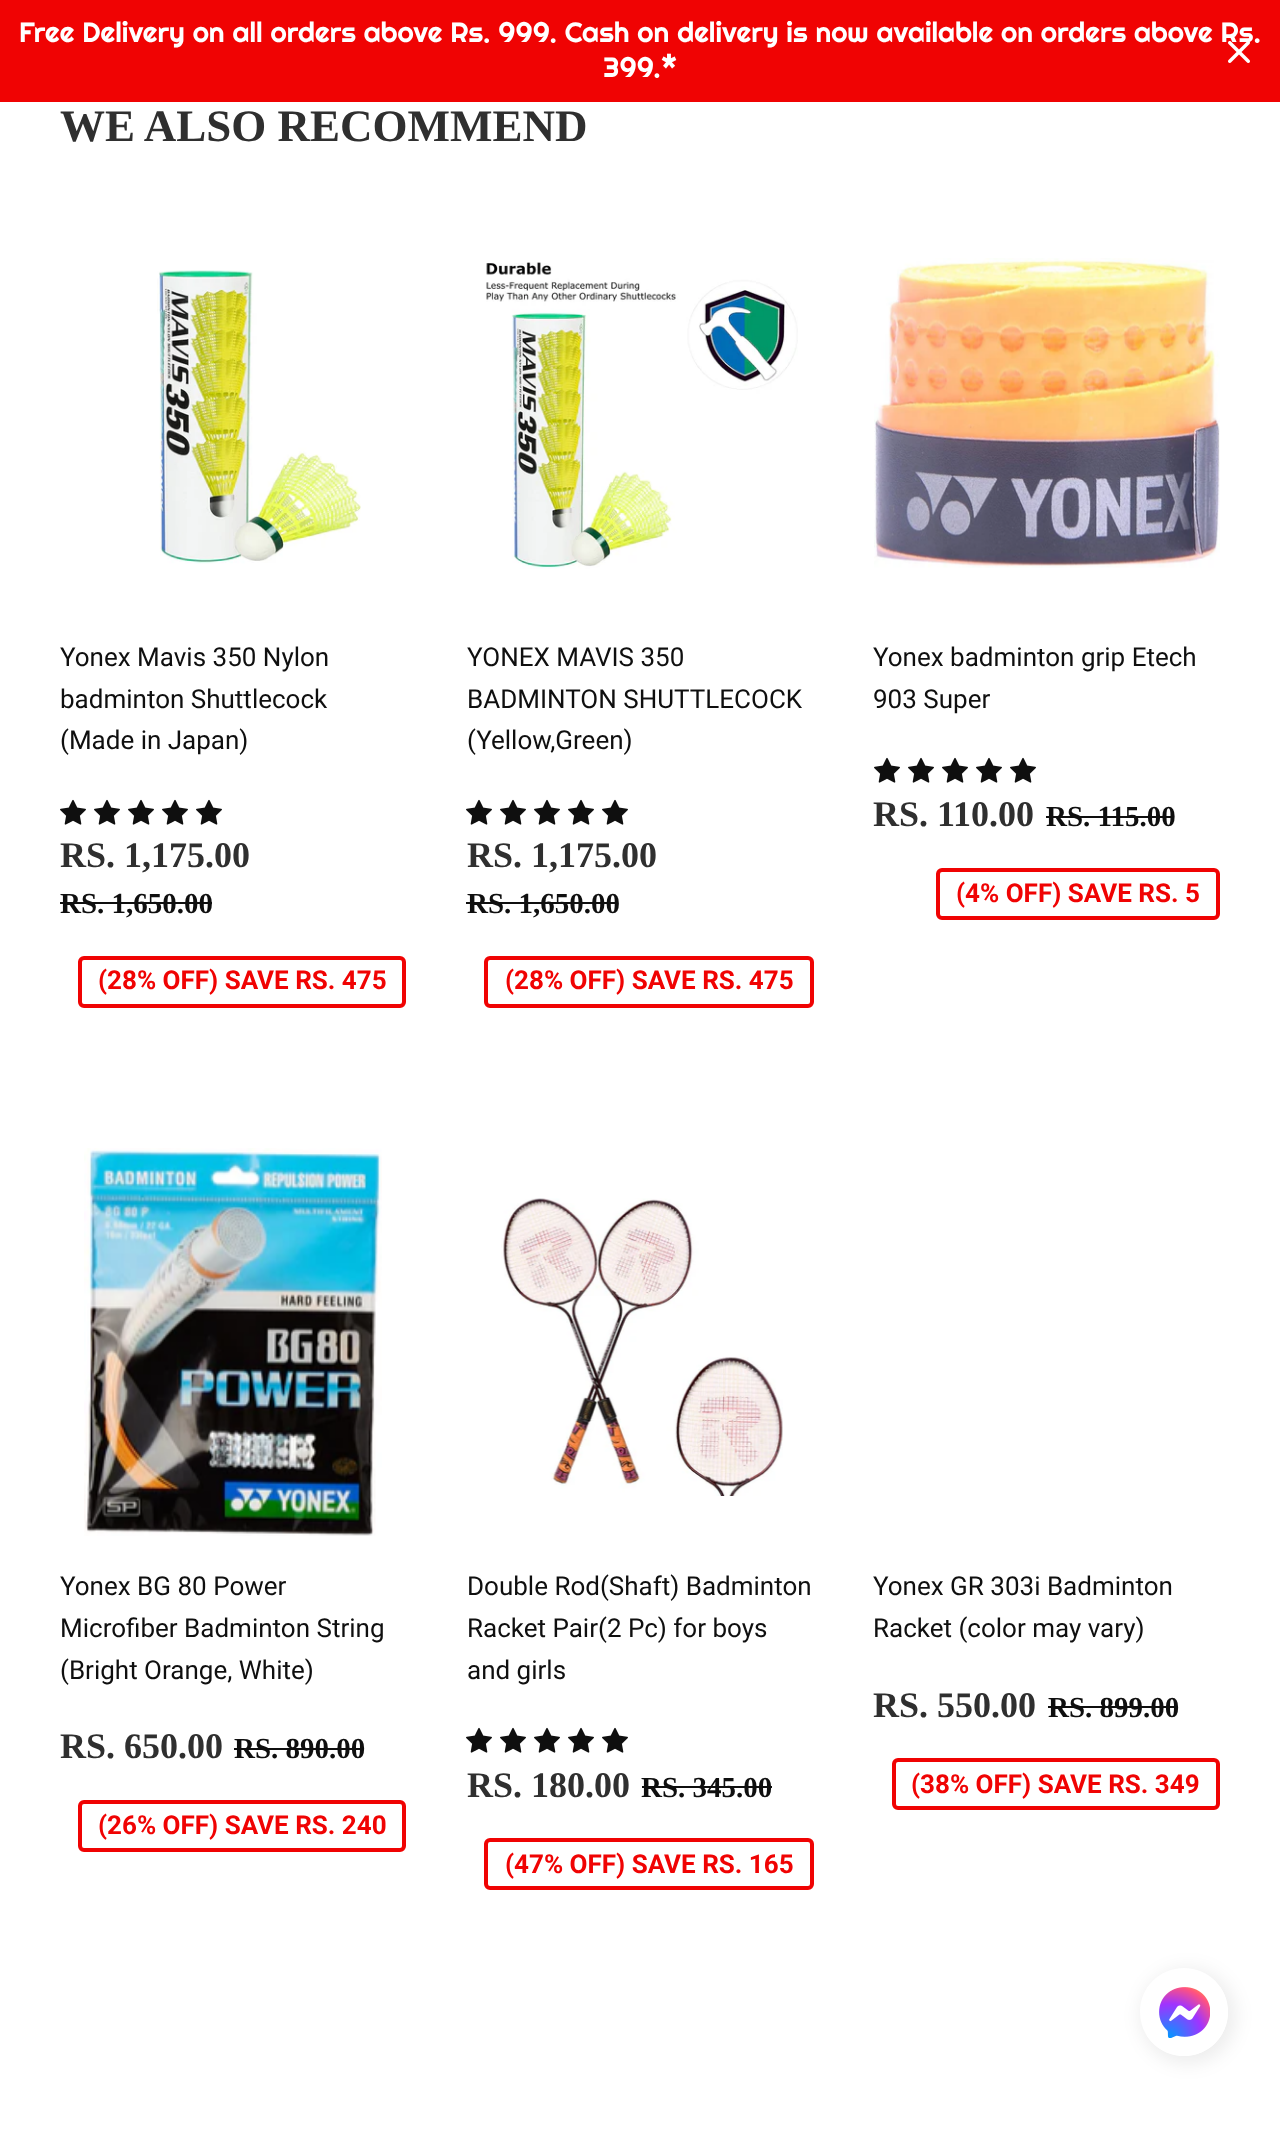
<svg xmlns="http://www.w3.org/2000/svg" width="1280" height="2134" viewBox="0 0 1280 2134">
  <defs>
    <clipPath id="clip1"><path d="M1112 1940H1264V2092H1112ZM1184 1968C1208.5 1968 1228 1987.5 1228 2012C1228 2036.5 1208.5 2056 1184 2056C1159.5 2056 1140 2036.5 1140 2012C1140 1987.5 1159.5 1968 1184 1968Z" clip-rule="evenodd"/></clipPath>
    <filter id="blur1" x="-50%" y="-200%" width="200%" height="500%"><feGaussianBlur stdDeviation="9"/></filter>
  </defs>
  <rect width="100%" height="100%" fill="#ffffff"/>
  <rect x="0" y="0" width="1280" height="102" fill="#f00303"/>
  <text x="19" y="42" font-family="Righteous" font-size="28" fill="#ffffff">Free Delivery on all orders above Rs. 999. Cash on delivery is now available on orders above Rs.</text>
  <text x="603" y="77" font-family="Righteous" font-size="28" fill="#ffffff">399.*</text>
  <image x="1228" y="41" width="22" height="22" href="img1.png"/>
  <text x="60" y="141" font-family="Liberation Serif" font-size="45" font-weight="bold" fill="#2f2f2f">WE ALSO RECOMMEND</text>
  <image x="157" y="270" width="204" height="294" href="img2.png"/>
  <text x="60" y="666" font-family="Roboto" font-size="26" fill="#0f0f0f">Yonex Mavis 350 Nylon</text>
  <text x="60" y="708" font-family="Roboto" font-size="26" fill="#0f0f0f">badminton Shuttlecock</text>
  <text x="60" y="749" font-family="Roboto" font-size="26" fill="#0f0f0f">(Made in Japan)</text>
  <image x="60" y="799" width="26" height="26" href="img3.png"/>
  <image x="94" y="799" width="26" height="26" href="img3.png"/>
  <image x="128" y="799" width="26" height="26" href="img3.png"/>
  <image x="162" y="799" width="26" height="26" href="img3.png"/>
  <image x="196" y="799" width="26" height="26" href="img3.png"/>
  <text x="60" y="867" font-family="Liberation Serif" font-size="36" font-weight="bold" fill="#2f2f2f">RS. 1,175.00</text>
  <text x="60" y="913" font-family="Liberation Serif" font-size="29" font-weight="bold" fill="#0f0f0f">RS. 1,650.00</text>
  <rect x="60" y="902" width="152" height="2" fill="#0f0f0f"/>
  <rect x="80" y="958" width="324" height="48" rx="4" fill="none" stroke="#f00303" stroke-width="4"/>
  <text x="98" y="989" font-family="Roboto" font-size="26" font-weight="bold" fill="#f00303">(28% OFF) SAVE RS. 475</text>
  <image x="486" y="262" width="312" height="307" href="img4.png"/>
  <text x="467" y="666" font-family="Roboto" font-size="26" fill="#0f0f0f">YONEX MAVIS 350</text>
  <text x="467" y="708" font-family="Roboto" font-size="26" fill="#0f0f0f">BADMINTON SHUTTLECOCK</text>
  <text x="467" y="749" font-family="Roboto" font-size="26" fill="#0f0f0f">(Yellow,Green)</text>
  <image x="466" y="799" width="26" height="26" href="img3.png"/>
  <image x="500" y="799" width="26" height="26" href="img3.png"/>
  <image x="534" y="799" width="26" height="26" href="img3.png"/>
  <image x="568" y="799" width="26" height="26" href="img3.png"/>
  <image x="602" y="799" width="26" height="26" href="img3.png"/>
  <text x="467" y="867" font-family="Liberation Serif" font-size="36" font-weight="bold" fill="#2f2f2f">RS. 1,175.00</text>
  <text x="467" y="913" font-family="Liberation Serif" font-size="29" font-weight="bold" fill="#0f0f0f">RS. 1,650.00</text>
  <rect x="466" y="902" width="152" height="2" fill="#0f0f0f"/>
  <rect x="486" y="958" width="326" height="48" rx="4" fill="none" stroke="#f00303" stroke-width="4"/>
  <text x="505" y="989" font-family="Roboto" font-size="26" font-weight="bold" fill="#f00303">(28% OFF) SAVE RS. 475</text>
  <image x="874" y="258" width="346" height="310" href="img5.png"/>
  <text x="873" y="666" font-family="Roboto" font-size="26" fill="#0f0f0f">Yonex badminton grip Etech</text>
  <text x="873" y="708" font-family="Roboto" font-size="26" fill="#0f0f0f">903 Super</text>
  <image x="874" y="757" width="26" height="26" href="img3.png"/>
  <image x="908" y="757" width="26" height="26" href="img3.png"/>
  <image x="942" y="757" width="26" height="26" href="img3.png"/>
  <image x="976" y="757" width="26" height="26" href="img3.png"/>
  <image x="1010" y="757" width="26" height="26" href="img3.png"/>
  <text x="873" y="826" font-family="Liberation Serif" font-size="36" font-weight="bold" fill="#2f2f2f">RS. 110.00</text>
  <text x="1046" y="826" font-family="Liberation Serif" font-size="29" font-weight="bold" fill="#0f0f0f">RS. 115.00</text>
  <rect x="1046" y="816" width="128" height="2" fill="#0f0f0f"/>
  <rect x="938" y="870" width="280" height="48" rx="4" fill="none" stroke="#f00303" stroke-width="4"/>
  <text x="956" y="902" font-family="Roboto" font-size="26" font-weight="bold" fill="#f00303">(4% OFF) SAVE RS. 5</text>
  <image x="84" y="1148" width="298" height="388" href="img6.png"/>
  <text x="60" y="1595" font-family="Roboto" font-size="26" fill="#0f0f0f">Yonex BG 80 Power</text>
  <text x="60" y="1637" font-family="Roboto" font-size="26" fill="#0f0f0f">Microfiber Badminton String</text>
  <text x="60" y="1679" font-family="Roboto" font-size="26" fill="#0f0f0f">(Bright Orange, White)</text>
  <text x="60" y="1758" font-family="Liberation Serif" font-size="36" font-weight="bold" fill="#2f2f2f">RS. 650.00</text>
  <text x="234" y="1758" font-family="Liberation Serif" font-size="29" font-weight="bold" fill="#0f0f0f">RS. 890.00</text>
  <rect x="234" y="1748" width="130" height="2" fill="#0f0f0f"/>
  <rect x="80" y="1802" width="324" height="48" rx="4" fill="none" stroke="#f00303" stroke-width="4"/>
  <text x="98" y="1834" font-family="Roboto" font-size="26" font-weight="bold" fill="#f00303">(26% OFF) SAVE RS. 240</text>
  <image x="501" y="1198" width="282" height="298" href="img7.png"/>
  <text x="467" y="1595" font-family="Roboto" font-size="26" fill="#0f0f0f">Double Rod(Shaft) Badminton</text>
  <text x="467" y="1637" font-family="Roboto" font-size="26" fill="#0f0f0f">Racket Pair(2 Pc) for boys</text>
  <text x="467" y="1679" font-family="Roboto" font-size="26" fill="#0f0f0f">and girls</text>
  <image x="466" y="1727" width="26" height="26" href="img3.png"/>
  <image x="500" y="1727" width="26" height="26" href="img3.png"/>
  <image x="534" y="1727" width="26" height="26" href="img3.png"/>
  <image x="568" y="1727" width="26" height="26" href="img3.png"/>
  <image x="602" y="1727" width="26" height="26" href="img3.png"/>
  <text x="467" y="1797" font-family="Liberation Serif" font-size="36" font-weight="bold" fill="#2f2f2f">RS. 180.00</text>
  <text x="641" y="1797" font-family="Liberation Serif" font-size="29" font-weight="bold" fill="#0f0f0f">RS. 345.00</text>
  <rect x="642" y="1786" width="130" height="2" fill="#0f0f0f"/>
  <rect x="486" y="1840" width="326" height="48" rx="4" fill="none" stroke="#f00303" stroke-width="4"/>
  <text x="505" y="1873" font-family="Roboto" font-size="26" font-weight="bold" fill="#f00303">(47% OFF) SAVE RS. 165</text>
  <text x="873" y="1595" font-family="Roboto" font-size="26" fill="#0f0f0f">Yonex GR 303i Badminton</text>
  <text x="873" y="1637" font-family="Roboto" font-size="26" fill="#0f0f0f">Racket (color may vary)</text>
  <text x="873" y="1717" font-family="Liberation Serif" font-size="36" font-weight="bold" fill="#2f2f2f">RS. 550.00</text>
  <text x="1048" y="1717" font-family="Liberation Serif" font-size="29" font-weight="bold" fill="#0f0f0f">RS. 899.00</text>
  <rect x="1048" y="1706" width="130" height="2" fill="#0f0f0f"/>
  <rect x="894" y="1760" width="324" height="48" rx="4" fill="none" stroke="#f00303" stroke-width="4"/>
  <text x="911" y="1793" font-family="Roboto" font-size="26" font-weight="bold" fill="#f00303">(38% OFF) SAVE RS. 349</text>
  <g clip-path="url(#clip1)">
    <rect x="1140" y="1968" width="96" height="96" rx="48" fill="#000000" fill-opacity="0.07" filter="url(#blur1)"/>
  </g>
  <image x="1147" y="1987" width="81" height="69" href="img8.png"/>
</svg>
